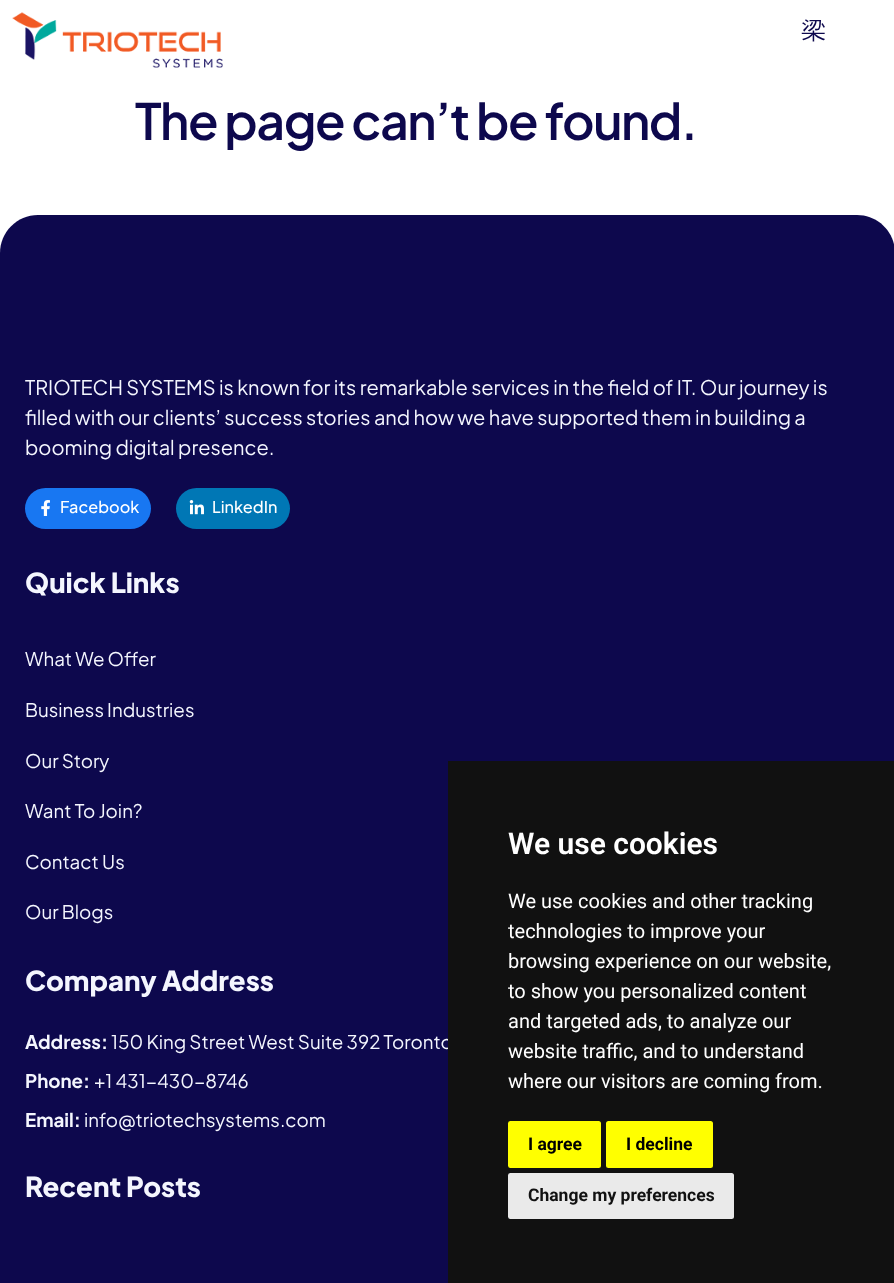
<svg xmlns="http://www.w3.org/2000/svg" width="894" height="1283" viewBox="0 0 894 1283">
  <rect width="100%" height="100%" fill="#ffffff"/>
  <image x="12" y="12" width="211" height="56" href="img1.png"/>
  <text x="801" y="38" font-family="WenQuanYi Zen Hei" font-size="25" font-weight="500" fill="#0d084d">梁</text>
  <text x="135" y="140" font-family="Plus Jakarta Sans" font-size="50" font-weight="600" letter-spacing="-1.5" fill="#0d084d">The page can’t be found.</text>
  <path d="M38 215H857C878 215 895 232 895 253V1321H0V253C0 232 17 215 38 215Z" fill="#0d084d"/>
  <text x="25" y="395" font-family="Plus Jakarta Sans" font-size="20" fill="#f4f6fe">TRIOTECH SYSTEMS is known for its remarkable services in the field of IT. Our journey is</text>
  <text x="25" y="425" font-family="Plus Jakarta Sans" font-size="20" fill="#f4f6fe">filled with our clients’ success stories and how we have supported them in building a</text>
  <text x="25" y="455" font-family="Plus Jakarta Sans" font-size="20" fill="#f4f6fe">booming digital presence.</text>
  <rect x="25" y="488" width="126" height="41" rx="20.5" fill="#1877f2"/>
  <image x="41" y="500" width="9" height="16" href="img2.png"/>
  <text x="60" y="513" font-family="Plus Jakarta Sans" font-size="16.25" font-weight="500" fill="#ffffff">Facebook</text>
  <rect x="176" y="488" width="114" height="41" rx="20.5" fill="#0077b5"/>
  <image x="189" y="500" width="15" height="15" href="img3.png"/>
  <text x="212" y="513" font-family="Plus Jakarta Sans" font-size="16.25" font-weight="500" fill="#ffffff">LinkedIn</text>
  <text x="25" y="593" font-family="Plus Jakarta Sans" font-size="27.5" font-weight="800" fill="#f4f6fe">Quick Links</text>
  <text x="25" y="666" font-family="Plus Jakarta Sans" font-size="18.75" fill="#f4f6fe">What We Offer</text>
  <text x="25" y="717" font-family="Plus Jakarta Sans" font-size="18.75" fill="#f4f6fe">Business Industries</text>
  <text x="25" y="768" font-family="Plus Jakarta Sans" font-size="18.75" fill="#f4f6fe">Our Story</text>
  <text x="25" y="818" font-family="Plus Jakarta Sans" font-size="18.75" fill="#f4f6fe">Want To Join?</text>
  <text x="25" y="869" font-family="Plus Jakarta Sans" font-size="18.75" fill="#f4f6fe">Contact Us</text>
  <text x="25" y="919" font-family="Plus Jakarta Sans" font-size="18.75" fill="#f4f6fe">Our Blogs</text>
  <text x="25" y="991" font-family="Plus Jakarta Sans" font-size="27.5" font-weight="800" fill="#f4f6fe">Company Address</text>
  <text x="25" y="1049" font-family="Plus Jakarta Sans" font-size="18.75" font-weight="bold" fill="#f4f6fe">Address:</text>
  <text x="111" y="1049" font-family="Plus Jakarta Sans" font-size="18.75" fill="#f4f6fe">150 King Street West Suite 392 Toronto</text>
  <text x="25" y="1088" font-family="Plus Jakarta Sans" font-size="18.75" font-weight="bold" fill="#f4f6fe">Phone:</text>
  <text x="94" y="1088" font-family="Plus Jakarta Sans" font-size="18.75" fill="#f4f6fe">+1 431-430-8746</text>
  <text x="25" y="1127" font-family="Plus Jakarta Sans" font-size="18.75" font-weight="bold" fill="#f4f6fe">Email:</text>
  <text x="84" y="1127" font-family="Plus Jakarta Sans" font-size="18.75" fill="#f4f6fe">info@triotechsystems.com</text>
  <text x="25" y="1197" font-family="Plus Jakarta Sans" font-size="27.5" font-weight="800" fill="#f4f6fe">Recent Posts</text>
  <rect x="448" y="761" width="446" height="522" fill="#111111"/>
  <text x="508" y="854" font-family="Roboto" font-size="30" font-weight="600" fill="#ffffff">We use cookies</text>
  <text x="508" y="908" font-family="Roboto" font-size="20" fill="#ffffff">We use cookies and other tracking</text>
  <text x="508" y="938" font-family="Roboto" font-size="20" fill="#ffffff">technologies to improve your</text>
  <text x="508" y="968" font-family="Roboto" font-size="20" fill="#ffffff">browsing experience on our website,</text>
  <text x="508" y="998" font-family="Roboto" font-size="20" fill="#ffffff">to show you personalized content</text>
  <text x="508" y="1028" font-family="Roboto" font-size="20" fill="#ffffff">and targeted ads, to analyze our</text>
  <text x="508" y="1058" font-family="Roboto" font-size="20" fill="#ffffff">website traffic, and to understand</text>
  <text x="508" y="1088" font-family="Roboto" font-size="20" fill="#ffffff">where our visitors are coming from.</text>
  <rect x="508" y="1121" width="93" height="47" rx="2.5" fill="#ffff00"/>
  <text x="528" y="1150" font-family="Roboto" font-size="17.5" font-weight="bold" fill="#000000">I agree</text>
  <rect x="606" y="1121" width="107" height="47" rx="2.5" fill="#ffff00"/>
  <text x="626" y="1150" font-family="Roboto" font-size="17.5" font-weight="bold" fill="#000000">I decline</text>
  <rect x="508" y="1173" width="226" height="46" rx="2.5" fill="#eaeaea"/>
  <text x="528" y="1201" font-family="Roboto" font-size="17.5" font-weight="bold" fill="#111111">Change my preferences</text>
</svg>
